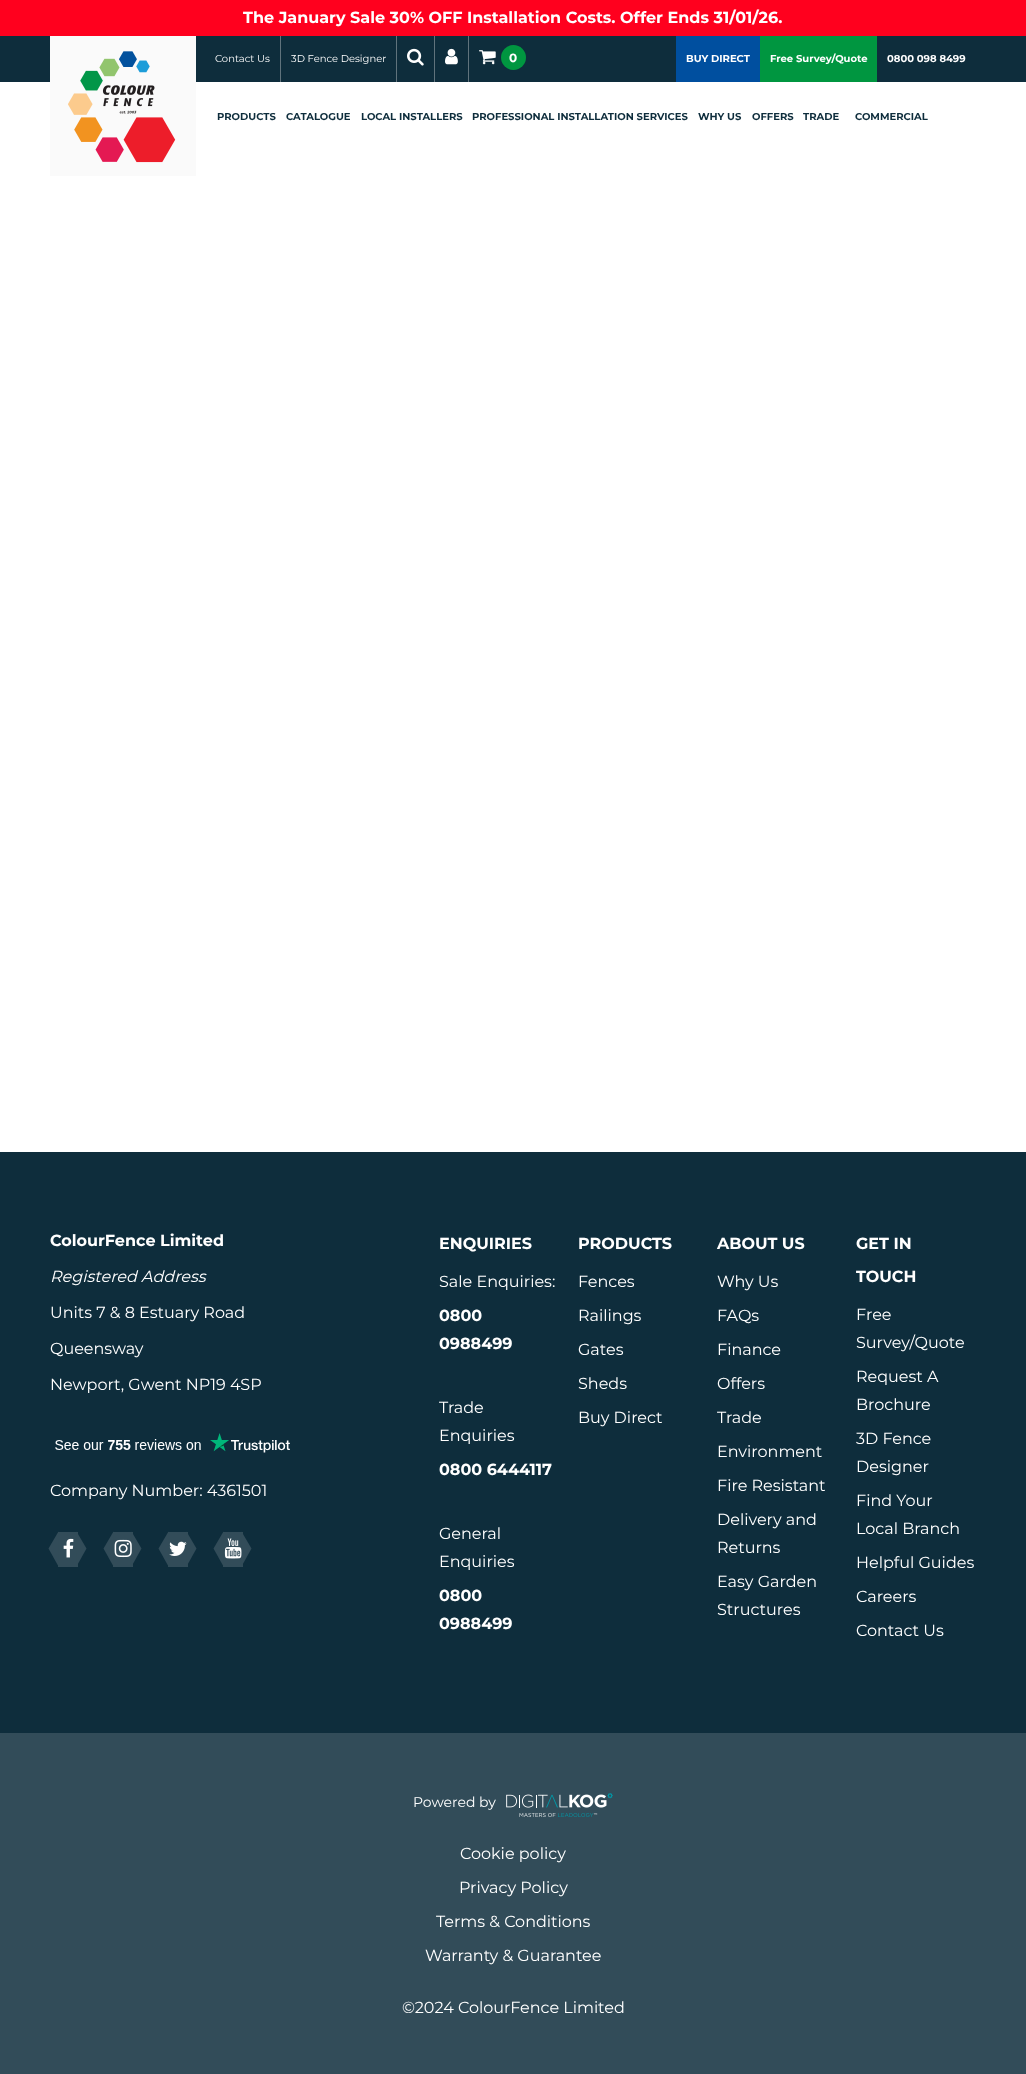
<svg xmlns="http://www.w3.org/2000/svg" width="1026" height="2074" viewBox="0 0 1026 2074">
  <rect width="100%" height="100%" fill="#ffffff"/>
  <rect x="0" y="0" width="1026" height="36" fill="#ff001e"/>
  <text x="243" y="23" font-family="Montserrat" font-size="16" font-weight="bold" fill="#ffffff">The January Sale 30% OFF Installation Costs. Offer Ends 31/01/26.</text>
  <rect x="0" y="36" width="1026" height="46" fill="#0e2d3c"/>
  <rect x="50" y="36" width="146" height="140" fill="#fafafa"/>
  <image x="68" y="51" width="108" height="112" href="img1.png"/>
  <text x="215" y="62" font-family="Montserrat" font-size="10" fill="#ffffff">Contact Us</text>
  <rect x="280" y="36" width="1" height="46" fill="#60737c"/>
  <text x="291" y="62" font-family="Montserrat" font-size="10" fill="#ffffff">3D Fence Designer</text>
  <rect x="396" y="36" width="1" height="46" fill="#60737c"/>
  <image x="407" y="48" width="17" height="18" href="img2.png"/>
  <rect x="434" y="36" width="1" height="46" fill="#60737c"/>
  <image x="445" y="48" width="13" height="17" href="img3.png"/>
  <rect x="468" y="36" width="1" height="46" fill="#60737c"/>
  <image x="479" y="50" width="17" height="15" href="img4.png"/>
  <circle cx="513.5" cy="57.5" r="12.5" fill="#009640"/>
  <text x="509" y="62" font-family="Montserrat" font-size="12" font-weight="bold" fill="#ffffff">0</text>
  <rect x="676" y="36" width="84" height="46" fill="#004f9f"/>
  <text x="686" y="62" font-family="Montserrat" font-size="10" font-weight="bold" fill="#ffffff">BUY DIRECT</text>
  <rect x="760" y="36" width="117" height="46" fill="#009640"/>
  <text x="770" y="62" font-family="Montserrat" font-size="10" font-weight="bold" fill="#ffffff">Free Survey/Quote</text>
  <text x="887" y="62" font-family="Montserrat" font-size="10" font-weight="bold" fill="#ffffff">0800 098 8499</text>
  <text x="217" y="120" font-family="Montserrat" font-size="10" font-weight="bold" fill="#0e2d3c">PRODUCTS</text>
  <text x="286" y="120" font-family="Montserrat" font-size="10" font-weight="bold" fill="#0e2d3c">CATALOGUE</text>
  <text x="361" y="120" font-family="Montserrat" font-size="10" font-weight="bold" fill="#0e2d3c">LOCAL INSTALLERS</text>
  <text x="472" y="120" font-family="Montserrat" font-size="10" font-weight="bold" fill="#0e2d3c">PROFESSIONAL INSTALLATION SERVICES</text>
  <text x="698" y="120" font-family="Montserrat" font-size="10" font-weight="bold" fill="#0e2d3c">WHY US</text>
  <text x="752" y="120" font-family="Montserrat" font-size="10" font-weight="bold" fill="#0e2d3c">OFFERS</text>
  <text x="803" y="120" font-family="Montserrat" font-size="10" font-weight="bold" fill="#0e2d3c">TRADE</text>
  <text x="855" y="120" font-family="Montserrat" font-size="10" font-weight="bold" fill="#0e2d3c">COMMERCIAL</text>
  <rect x="0" y="1152" width="1026" height="581" fill="#0e2d3c"/>
  <text x="50" y="1246" font-family="Montserrat" font-size="16" font-weight="bold" fill="#ffffff">ColourFence Limited</text>
  <text x="50" y="1282" font-family="Montserrat" font-size="16" font-style="italic" fill="#ffffff">Registered Address</text>
  <text x="50" y="1318" font-family="Montserrat" font-size="16" fill="#ffffff">Units 7 &amp; 8 Estuary Road</text>
  <text x="50" y="1354" font-family="Montserrat" font-size="16" fill="#ffffff">Queensway</text>
  <text x="50" y="1390" font-family="Montserrat" font-size="16" fill="#ffffff">Newport, Gwent NP19 4SP</text>
  <image x="55" y="1433" width="235" height="20" href="img5.png"/>
  <text x="50" y="1496" font-family="Montserrat" font-size="16" fill="#ffffff">Company Number: 4361501</text>
  <rect x="58" y="1532" width="20" height="35" fill="#324c59"/>
  <path d="M58.5 1531.5V1566.5L48.5 1548.5Z" fill="#324c59"/>
  <image x="63" y="1538" width="11" height="20" href="img6.png"/>
  <path d="M76.5 1566.5V1531.5L86.5 1548.5Z" fill="#324c59"/>
  <rect x="113" y="1532" width="20" height="35" fill="#324c59"/>
  <path d="M113.5 1531.5V1566.5L103.5 1548.5Z" fill="#324c59"/>
  <path d="M131.5 1566.5V1531.5L141.5 1548.5Z" fill="#324c59"/>
  <image x="114" y="1539" width="18" height="19" href="img7.png"/>
  <rect x="168" y="1532" width="20" height="35" fill="#324c59"/>
  <path d="M168.5 1531.5V1566.5L158.5 1548.5Z" fill="#324c59"/>
  <path d="M186.5 1566.5V1531.5L196.5 1548.5Z" fill="#324c59"/>
  <image x="169" y="1541" width="18" height="15" href="img8.png"/>
  <rect x="223" y="1532" width="20" height="35" fill="#324c59"/>
  <path d="M223.5 1531.5V1566.5L213.5 1548.5Z" fill="#324c59"/>
  <path d="M241.5 1566.5V1531.5L251.5 1548.5Z" fill="#324c59"/>
  <image x="224" y="1538" width="18" height="21" href="img9.png"/>
  <text x="439" y="1249" font-family="Montserrat" font-size="16" font-weight="bold" fill="#ffffff">ENQUIRIES</text>
  <text x="439" y="1287" font-family="Montserrat" font-size="16" fill="#ffffff">Sale Enquiries:</text>
  <text x="439" y="1321" font-family="Montserrat" font-size="16" font-weight="bold" fill="#ffffff">0800</text>
  <text x="439" y="1349" font-family="Montserrat" font-size="16" font-weight="bold" fill="#ffffff">0988499</text>
  <text x="439" y="1413" font-family="Montserrat" font-size="16" fill="#ffffff">Trade</text>
  <text x="439" y="1441" font-family="Montserrat" font-size="16" fill="#ffffff">Enquiries</text>
  <text x="439" y="1475" font-family="Montserrat" font-size="16" font-weight="bold" fill="#ffffff">0800 6444117</text>
  <text x="439" y="1539" font-family="Montserrat" font-size="16" fill="#ffffff">General</text>
  <text x="439" y="1567" font-family="Montserrat" font-size="16" fill="#ffffff">Enquiries</text>
  <text x="439" y="1601" font-family="Montserrat" font-size="16" font-weight="bold" fill="#ffffff">0800</text>
  <text x="439" y="1629" font-family="Montserrat" font-size="16" font-weight="bold" fill="#ffffff">0988499</text>
  <text x="578" y="1249" font-family="Montserrat" font-size="16" font-weight="bold" fill="#ffffff">PRODUCTS</text>
  <text x="578" y="1287" font-family="Montserrat" font-size="16" fill="#ffffff">Fences</text>
  <text x="578" y="1321" font-family="Montserrat" font-size="16" fill="#ffffff">Railings</text>
  <text x="578" y="1355" font-family="Montserrat" font-size="16" fill="#ffffff">Gates</text>
  <text x="578" y="1389" font-family="Montserrat" font-size="16" fill="#ffffff">Sheds</text>
  <text x="578" y="1423" font-family="Montserrat" font-size="16" fill="#ffffff">Buy Direct</text>
  <text x="717" y="1249" font-family="Montserrat" font-size="16" font-weight="bold" fill="#ffffff">ABOUT US</text>
  <text x="717" y="1287" font-family="Montserrat" font-size="16" fill="#ffffff">Why Us</text>
  <text x="717" y="1321" font-family="Montserrat" font-size="16" fill="#ffffff">FAQs</text>
  <text x="717" y="1355" font-family="Montserrat" font-size="16" fill="#ffffff">Finance</text>
  <text x="717" y="1389" font-family="Montserrat" font-size="16" fill="#ffffff">Offers</text>
  <text x="717" y="1423" font-family="Montserrat" font-size="16" fill="#ffffff">Trade</text>
  <text x="717" y="1457" font-family="Montserrat" font-size="16" fill="#ffffff">Environment</text>
  <text x="717" y="1491" font-family="Montserrat" font-size="16" fill="#ffffff">Fire Resistant</text>
  <text x="717" y="1525" font-family="Montserrat" font-size="16" fill="#ffffff">Delivery and</text>
  <text x="717" y="1553" font-family="Montserrat" font-size="16" fill="#ffffff">Returns</text>
  <text x="717" y="1587" font-family="Montserrat" font-size="16" fill="#ffffff">Easy Garden</text>
  <text x="717" y="1615" font-family="Montserrat" font-size="16" fill="#ffffff">Structures</text>
  <text x="856" y="1249" font-family="Montserrat" font-size="16" font-weight="bold" fill="#ffffff">GET IN</text>
  <text x="856" y="1282" font-family="Montserrat" font-size="16" font-weight="bold" fill="#ffffff">TOUCH</text>
  <text x="856" y="1320" font-family="Montserrat" font-size="16" fill="#ffffff">Free</text>
  <text x="856" y="1348" font-family="Montserrat" font-size="16" fill="#ffffff">Survey/Quote</text>
  <text x="856" y="1382" font-family="Montserrat" font-size="16" fill="#ffffff">Request A</text>
  <text x="856" y="1410" font-family="Montserrat" font-size="16" fill="#ffffff">Brochure</text>
  <text x="856" y="1444" font-family="Montserrat" font-size="16" fill="#ffffff">3D Fence</text>
  <text x="856" y="1472" font-family="Montserrat" font-size="16" fill="#ffffff">Designer</text>
  <text x="856" y="1506" font-family="Montserrat" font-size="16" fill="#ffffff">Find Your</text>
  <text x="856" y="1534" font-family="Montserrat" font-size="16" fill="#ffffff">Local Branch</text>
  <text x="856" y="1568" font-family="Montserrat" font-size="16" fill="#ffffff">Helpful Guides</text>
  <text x="856" y="1602" font-family="Montserrat" font-size="16" fill="#ffffff">Careers</text>
  <text x="856" y="1636" font-family="Montserrat" font-size="16" fill="#ffffff">Contact Us</text>
  <rect x="0" y="1733" width="1026" height="341" fill="#324c59"/>
  <text x="413" y="1807" font-family="Montserrat" font-size="14" fill="#ffffff">Powered by</text>
  <image x="506" y="1793" width="107" height="24" href="img10.png"/>
  <text x="460" y="1859" font-family="Montserrat" font-size="16" fill="#ffffff">Cookie policy</text>
  <text x="459" y="1893" font-family="Montserrat" font-size="16" fill="#ffffff">Privacy Policy</text>
  <text x="436" y="1927" font-family="Montserrat" font-size="16" fill="#ffffff">Terms &amp; Conditions</text>
  <text x="425" y="1961" font-family="Montserrat" font-size="16" fill="#ffffff">Warranty &amp; Guarantee</text>
  <text x="402" y="2013" font-family="Montserrat" font-size="16" fill="#ffffff">©2024 ColourFence Limited</text>
</svg>
